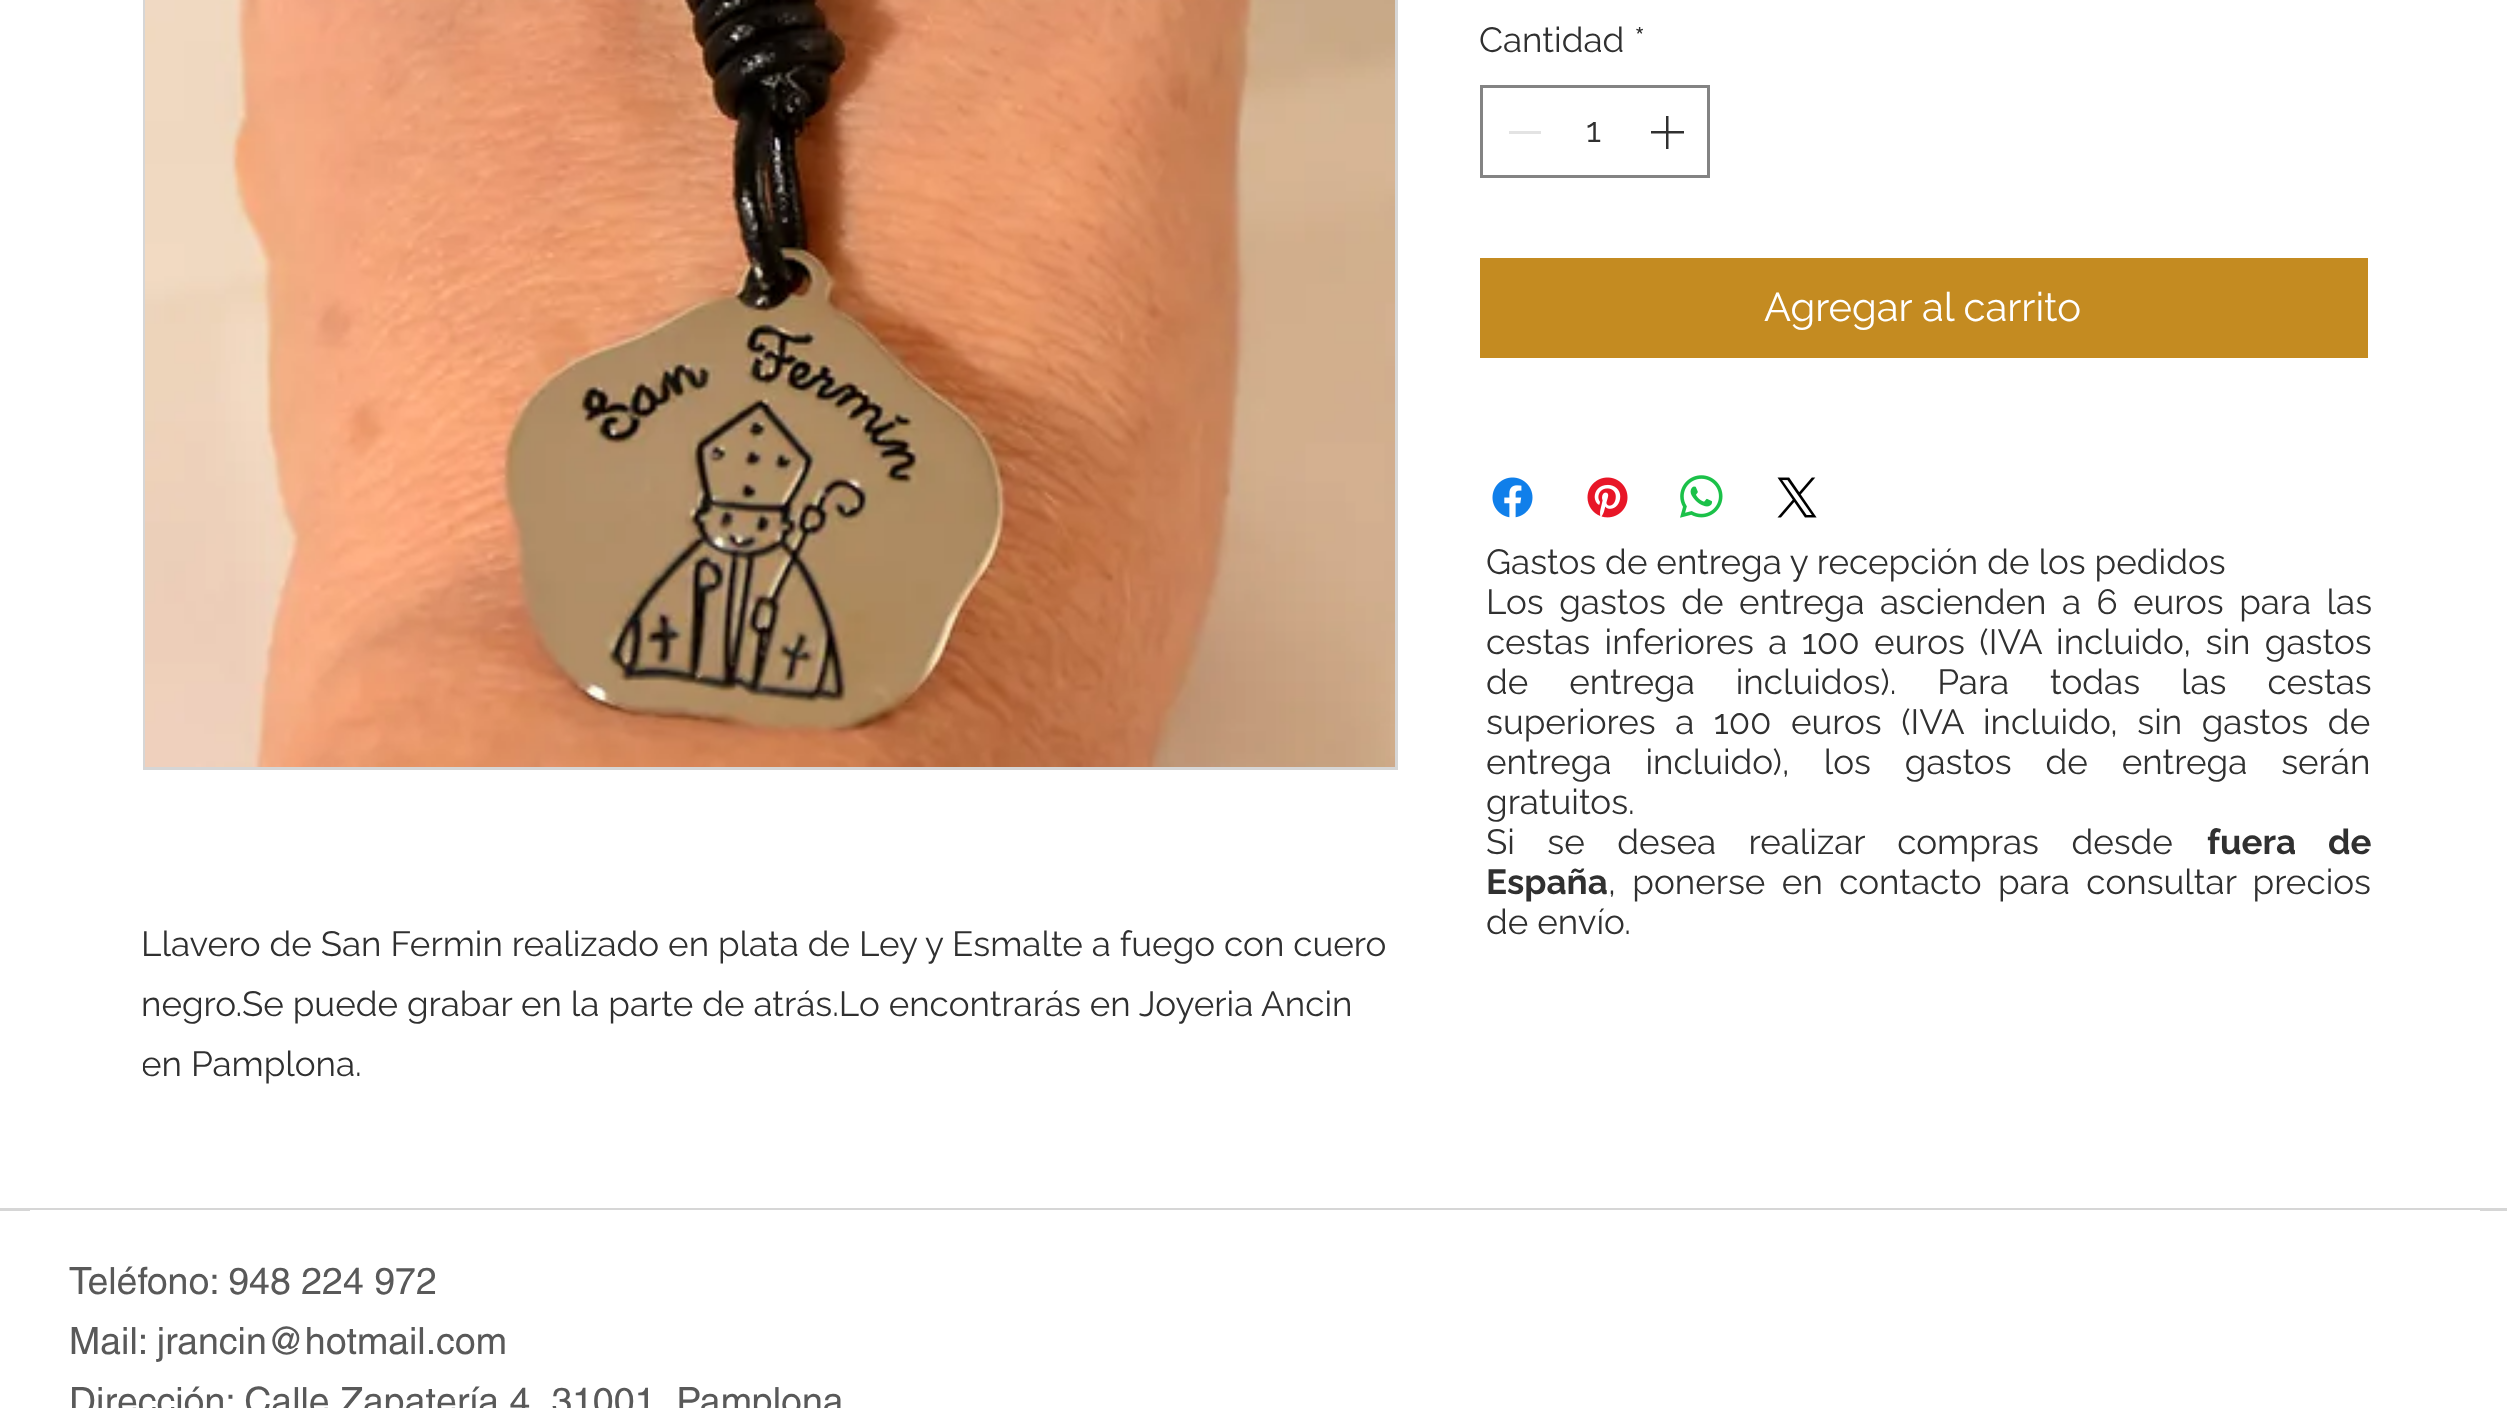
<svg xmlns="http://www.w3.org/2000/svg" width="2507" height="1408" viewBox="0 0 2507 1408">
  <defs>
    <clipPath id="clip1"><rect x="143" y="915" width="1250" height="180"/></clipPath>
  </defs>
  <rect width="100%" height="100%" fill="#ffffff"/>
  <text x="1479" y="52" font-family="Raleway" font-size="35" fill="#303030">Cantidad</text>
  <text x="1634" y="52" font-family="Raleway" font-size="35" fill="#303030">*</text>
  <rect x="1481.5" y="86.5" width="227" height="90" fill="none" stroke="#838383" stroke-width="3"/>
  <rect x="1509" y="131" width="32" height="3" fill="#e3e3e3"/>
  <text x="1586" y="142" font-family="Raleway" font-size="35" fill="#303030">1</text>
  <path d="M1668.5 116V131H1684V133.5H1668.5V149H1666V133.5H1651V131H1666V116Z" fill="#303030" fill-rule="evenodd"/>
  <rect x="1480" y="258" width="888" height="100" fill="#c48b21"/>
  <text x="1764" y="321" font-family="Raleway" font-size="40" fill="#ffffff">Agregar al carrito</text>
  <image x="1492" y="477" width="41" height="41" href="img1.png"/>
  <image x="1587" y="477" width="41" height="41" href="img2.png"/>
  <image x="1680" y="475" width="43" height="43" href="img3.png"/>
  <image x="1777" y="477" width="40" height="41" href="img4.png"/>
  <rect x="144.5" y="-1.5" width="1252" height="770" fill="none" stroke="#d6d6d6" stroke-width="3"/>
  <image x="145" y="0" width="1250" height="767" href="img5.png"/>
  <text x="141" y="956" font-family="Raleway" font-size="35" fill="#303030">Llavero de San Fermin realizado en plata de Ley y Esmalte a fuego con cuero</text>
  <text x="141" y="1016" font-family="Raleway" font-size="35" fill="#303030">negro.Se puede grabar en la parte de atrás.Lo encontrarás en Joyeria Ancin</text>
  <g clip-path="url(#clip1)">
    <text x="141" y="1076" font-family="Raleway" font-size="35" fill="#303030">en Pamplona.</text>
  </g>
  <text x="1486" y="574" font-family="Raleway" font-size="35" fill="#303030">Gastos de entrega y recepción de los pedidos</text>
  <text x="1486" y="614" word-spacing="6.5" font-family="Raleway" font-size="35" fill="#303030">Los gastos de entrega ascienden a 6 euros para las</text>
  <text x="1486" y="654" word-spacing="5.5" font-family="Raleway" font-size="35" fill="#303030">cestas inferiores a 100 euros (IVA incluido, sin gastos</text>
  <text x="1486" y="694" word-spacing="32" font-family="Raleway" font-size="35" fill="#303030">de entrega incluidos). Para todas las cestas</text>
  <text x="1486" y="734" word-spacing="10.5" font-family="Raleway" font-size="35" fill="#303030">superiores a 100 euros (IVA incluido, sin gastos de</text>
  <text x="1486" y="774" word-spacing="25" font-family="Raleway" font-size="35" fill="#303030">entrega incluido), los gastos de entrega serán</text>
  <text x="1486" y="814" font-family="Raleway" font-size="35" fill="#303030">gratuitos.</text>
  <text x="1486" y="854" word-spacing="23.5" font-family="Raleway" font-size="35" fill="#303030">Si se desea realizar compras desde</text>
  <text x="2207" y="854" word-spacing="23.5" font-family="Raleway" font-size="35" font-weight="bold" fill="#303030">fuera de</text>
  <text x="1486" y="894" font-family="Raleway" font-size="35" font-weight="bold" fill="#303030">España</text>
  <text x="1608" y="894" word-spacing="7.5" font-family="Raleway" font-size="35" fill="#303030">, ponerse en contacto para consultar precios</text>
  <text x="1486" y="934" font-family="Raleway" font-size="35" fill="#303030">de envío.</text>
  <rect x="0" y="1208" width="2507" height="3" fill="#d6d6d6"/>
  <rect x="30" y="1210" width="2450" height="1" fill="#ffffff"/>
  <text x="69" y="1294" font-family="helvetica" font-size="37.5" fill="#595959">Teléfono: 948 224 972</text>
  <text x="69" y="1354" font-family="helvetica" font-size="37.5" fill="#595959">Mail: jrancin@hotmail.com</text>
  <text x="69" y="1414" font-family="helvetica" font-size="37.5" fill="#595959">Dirección: Calle Zapatería 4, 31001, Pamplona</text>
</svg>
